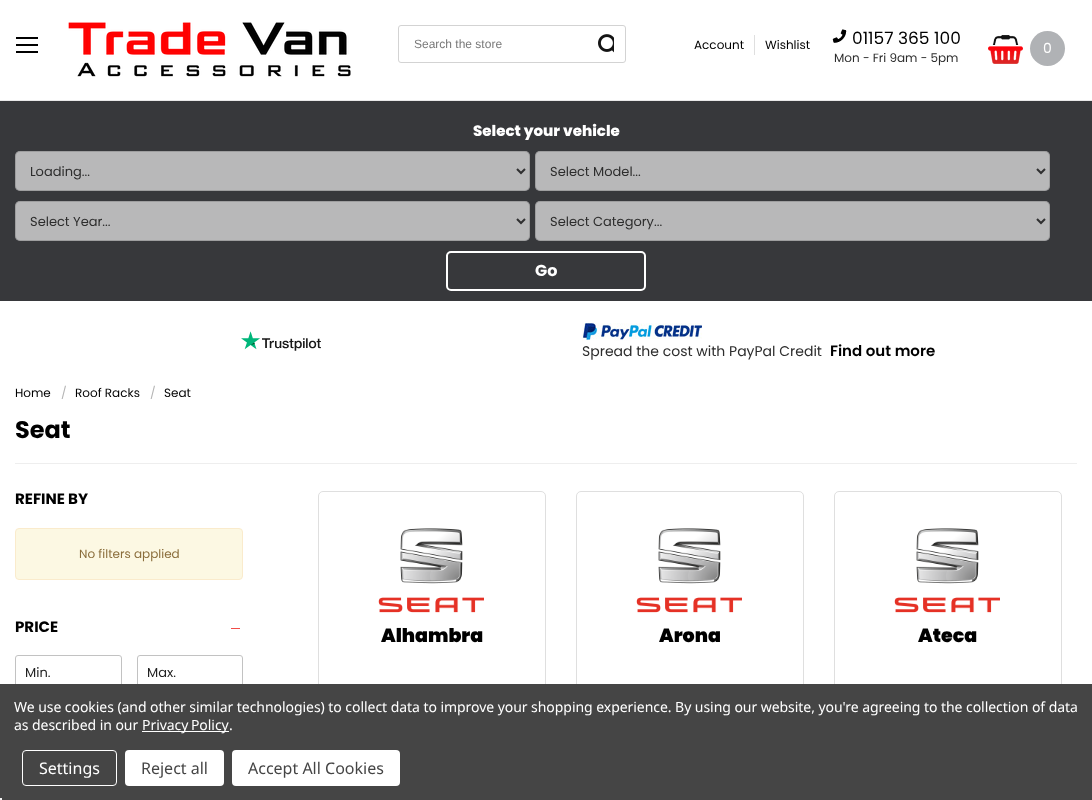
<svg xmlns="http://www.w3.org/2000/svg" width="1092" height="800" viewBox="0 0 1092 800">
  <rect width="100%" height="100%" fill="#ffffff"/>
  <rect x="16" y="37" width="22" height="2" fill="#000000"/>
  <rect x="16" y="51" width="22" height="2" fill="#000000"/>
  <rect x="16" y="44" width="22" height="2" fill="#000000"/>
  <image x="68" y="22" width="283" height="55" href="img1.png"/>
  <rect x="398.5" y="25.5" width="227" height="37" rx="2.5" fill="none" stroke="#d3d3d3"/>
  <text x="414" y="48" font-family="Arimo" font-size="12" fill="#797979">Search the store</text>
  <image x="598" y="34" width="16" height="19" href="img2.png"/>
  <text x="694" y="49" font-family="Poppins" font-size="12" fill="#000000">Account</text>
  <rect x="754" y="35" width="1" height="20" fill="#dfdfdf"/>
  <text x="765" y="49" font-family="Poppins" font-size="12" fill="#000000">Wishlist</text>
  <image x="832" y="29" width="15" height="14" href="img3.png"/>
  <text x="852" y="44" font-family="Poppins" font-size="17" fill="#000000">01157 365 100</text>
  <text x="834" y="62" font-family="Poppins" font-size="12" fill="#2d2d2d">Mon - Fri 9am - 5pm</text>
  <image x="988" y="35" width="35" height="29" href="img4.png"/>
  <circle cx="1047.5" cy="48.5" r="17.5" fill="#b0b2b5"/>
  <text x="1043" y="53" font-family="Poppins" font-size="14" fill="#ffffff">0</text>
  <rect x="0" y="100" width="1092" height="1" fill="#e8e8e8"/>
  <rect x="0" y="101" width="1092" height="200" fill="#37383b"/>
  <text x="473" y="136" font-family="Poppins" font-size="15" font-weight="800" fill="#ffffff">Select your vehicle</text>
  <rect x="15" y="151" width="515" height="40" rx="5" fill="#b8b8b9"/>
  <rect x="15.5" y="151.5" width="514" height="39" rx="4.5" fill="none" stroke="#636364" stroke-opacity="0.3"/>
  <path d="M517 169L521 173L525 169" fill="none" stroke="#303031" stroke-width="2"/>
  <text x="30" y="176" font-family="Poppins" font-size="13" fill="#2d2d2d">Loading...</text>
  <rect x="535" y="151" width="515" height="40" rx="5" fill="#b8b8b9"/>
  <rect x="535.5" y="151.5" width="514" height="39" rx="4.5" fill="none" stroke="#636364" stroke-opacity="0.3"/>
  <path d="M1037 169L1041 173L1045 169" fill="none" stroke="#303031" stroke-width="2"/>
  <text x="550" y="176" font-family="Poppins" font-size="13" fill="#2d2d2d">Select Model...</text>
  <rect x="15" y="201" width="515" height="40" rx="5" fill="#b8b8b9"/>
  <rect x="15.5" y="201.5" width="514" height="39" rx="4.5" fill="none" stroke="#636364" stroke-opacity="0.3"/>
  <path d="M517 219L521 223L525 219" fill="none" stroke="#303031" stroke-width="2"/>
  <text x="30" y="226" font-family="Poppins" font-size="13" fill="#2d2d2d">Select Year...</text>
  <rect x="535" y="201" width="515" height="40" rx="5" fill="#b8b8b9"/>
  <rect x="535.5" y="201.5" width="514" height="39" rx="4.5" fill="none" stroke="#636364" stroke-opacity="0.3"/>
  <path d="M1037 219L1041 223L1045 219" fill="none" stroke="#303031" stroke-width="2"/>
  <text x="550" y="226" font-family="Poppins" font-size="13" fill="#2d2d2d">Select Category...</text>
  <rect x="447" y="252" width="198" height="38" rx="4" fill="none" stroke="#ffffff" stroke-width="2"/>
  <text x="535" y="276" font-family="Poppins" font-size="16" font-weight="bold" fill="#ffffff">Go</text>
  <image x="241" y="331" width="80" height="20" href="img5.png"/>
  <image x="582" y="323" width="120" height="18" href="img6.png"/>
  <text x="582" y="356" font-family="Poppins" font-size="14" fill="#2d2d2d">Spread the cost with PayPal Credit</text>
  <text x="830" y="356" font-family="Poppins" font-size="15" font-weight="600" fill="#000000">Find out more</text>
  <text x="15" y="397" font-family="Poppins" font-size="12" fill="#000000">Home</text>
  <text x="61" y="397" font-family="Poppins" font-size="12" fill="#b4b4b4">/</text>
  <text x="75" y="397" font-family="Poppins" font-size="12" fill="#000000">Roof Racks</text>
  <text x="150" y="397" font-family="Poppins" font-size="12" fill="#b4b4b4">/</text>
  <text x="164" y="397" font-family="Poppins" font-size="12" fill="#000000">Seat</text>
  <rect x="15" y="463" width="1062" height="1" fill="#eeeeee"/>
  <text x="15" y="438" font-family="Poppins" font-size="24" font-weight="bold" fill="#000000">Seat</text>
  <text x="15" y="504" font-family="Poppins" font-size="15" font-weight="bold" fill="#000000">REFINE BY</text>
  <rect x="15.5" y="528.5" width="227" height="51" rx="3.5" fill="#fcf8e3" stroke="#faebcc"/>
  <text x="79" y="558" font-family="Poppins" font-size="12" fill="#8a6d3b">No filters applied</text>
  <text x="15" y="632" font-family="Poppins" font-size="15" font-weight="bold" fill="#000000">PRICE</text>
  <rect x="231" y="628" width="9" height="1" fill="#f14d48"/>
  <rect x="15.5" y="655.5" width="106" height="35" rx="2.5" fill="none" stroke="#c2c2c2"/>
  <text x="25" y="677" font-family="Poppins" font-size="13" fill="#222222">Min.</text>
  <rect x="137.5" y="655.5" width="105" height="35" rx="2.5" fill="none" stroke="#c2c2c2"/>
  <text x="147" y="677" font-family="Poppins" font-size="13" fill="#222222">Max.</text>
  <rect x="318.5" y="491.5" width="227" height="199" rx="4.5" fill="none" stroke="#dfdfdf"/>
  <image x="378" y="528" width="106" height="85" href="img7.png"/>
  <text x="381" y="642" font-family="Poppins" font-size="19" font-weight="900" fill="#000000">Alhambra</text>
  <rect x="576.5" y="491.5" width="227" height="199" rx="4.5" fill="none" stroke="#dfdfdf"/>
  <image x="636" y="528" width="106" height="85" href="img7.png"/>
  <text x="659" y="642" font-family="Poppins" font-size="19" font-weight="900" fill="#000000">Arona</text>
  <rect x="834.5" y="491.5" width="227" height="199" rx="4.5" fill="none" stroke="#dfdfdf"/>
  <image x="894" y="528" width="106" height="85" href="img7.png"/>
  <text x="918" y="642" font-family="Poppins" font-size="19" font-weight="900" fill="#000000">Ateca</text>
  <rect x="0" y="684" width="1092" height="116" fill="#454545"/>
  <text x="14" y="712" font-family="Noto Sans" font-size="14" letter-spacing="-0.05" fill="#ffffff">We use cookies (and other similar technologies) to collect data to improve your shopping experience. By using our website, you're agreeing to the collection of data</text>
  <text x="14" y="730" font-family="Noto Sans" font-size="14" letter-spacing="-0.05" fill="#ffffff">as described in our</text>
  <rect x="142" y="731" width="87" height="1" fill="#ffffff"/>
  <text x="142" y="730" word-spacing="-1" font-family="Noto Sans" font-size="14" letter-spacing="-0.05" fill="#ffffff">Privacy Policy</text>
  <text x="229" y="730" font-family="Noto Sans" font-size="14" letter-spacing="-0.05" fill="#ffffff">.</text>
  <rect x="22.5" y="750.5" width="94" height="35" rx="3.5" fill="none" stroke="#ffffff"/>
  <text x="39" y="774" font-family="Noto Sans" font-size="16" fill="#ffffff">Settings</text>
  <rect x="125" y="750" width="99" height="36" rx="4" fill="#ffffff"/>
  <text x="141" y="774" font-family="Noto Sans" font-size="16" fill="#454545">Reject all</text>
  <rect x="232" y="750" width="168" height="36" rx="4" fill="#ffffff"/>
  <text x="248" y="774" font-family="Noto Sans" font-size="16" fill="#454545">Accept All Cookies</text>
  <rect x="0" y="798" width="2" height="2" fill="#f5f5f5"/>
</svg>
